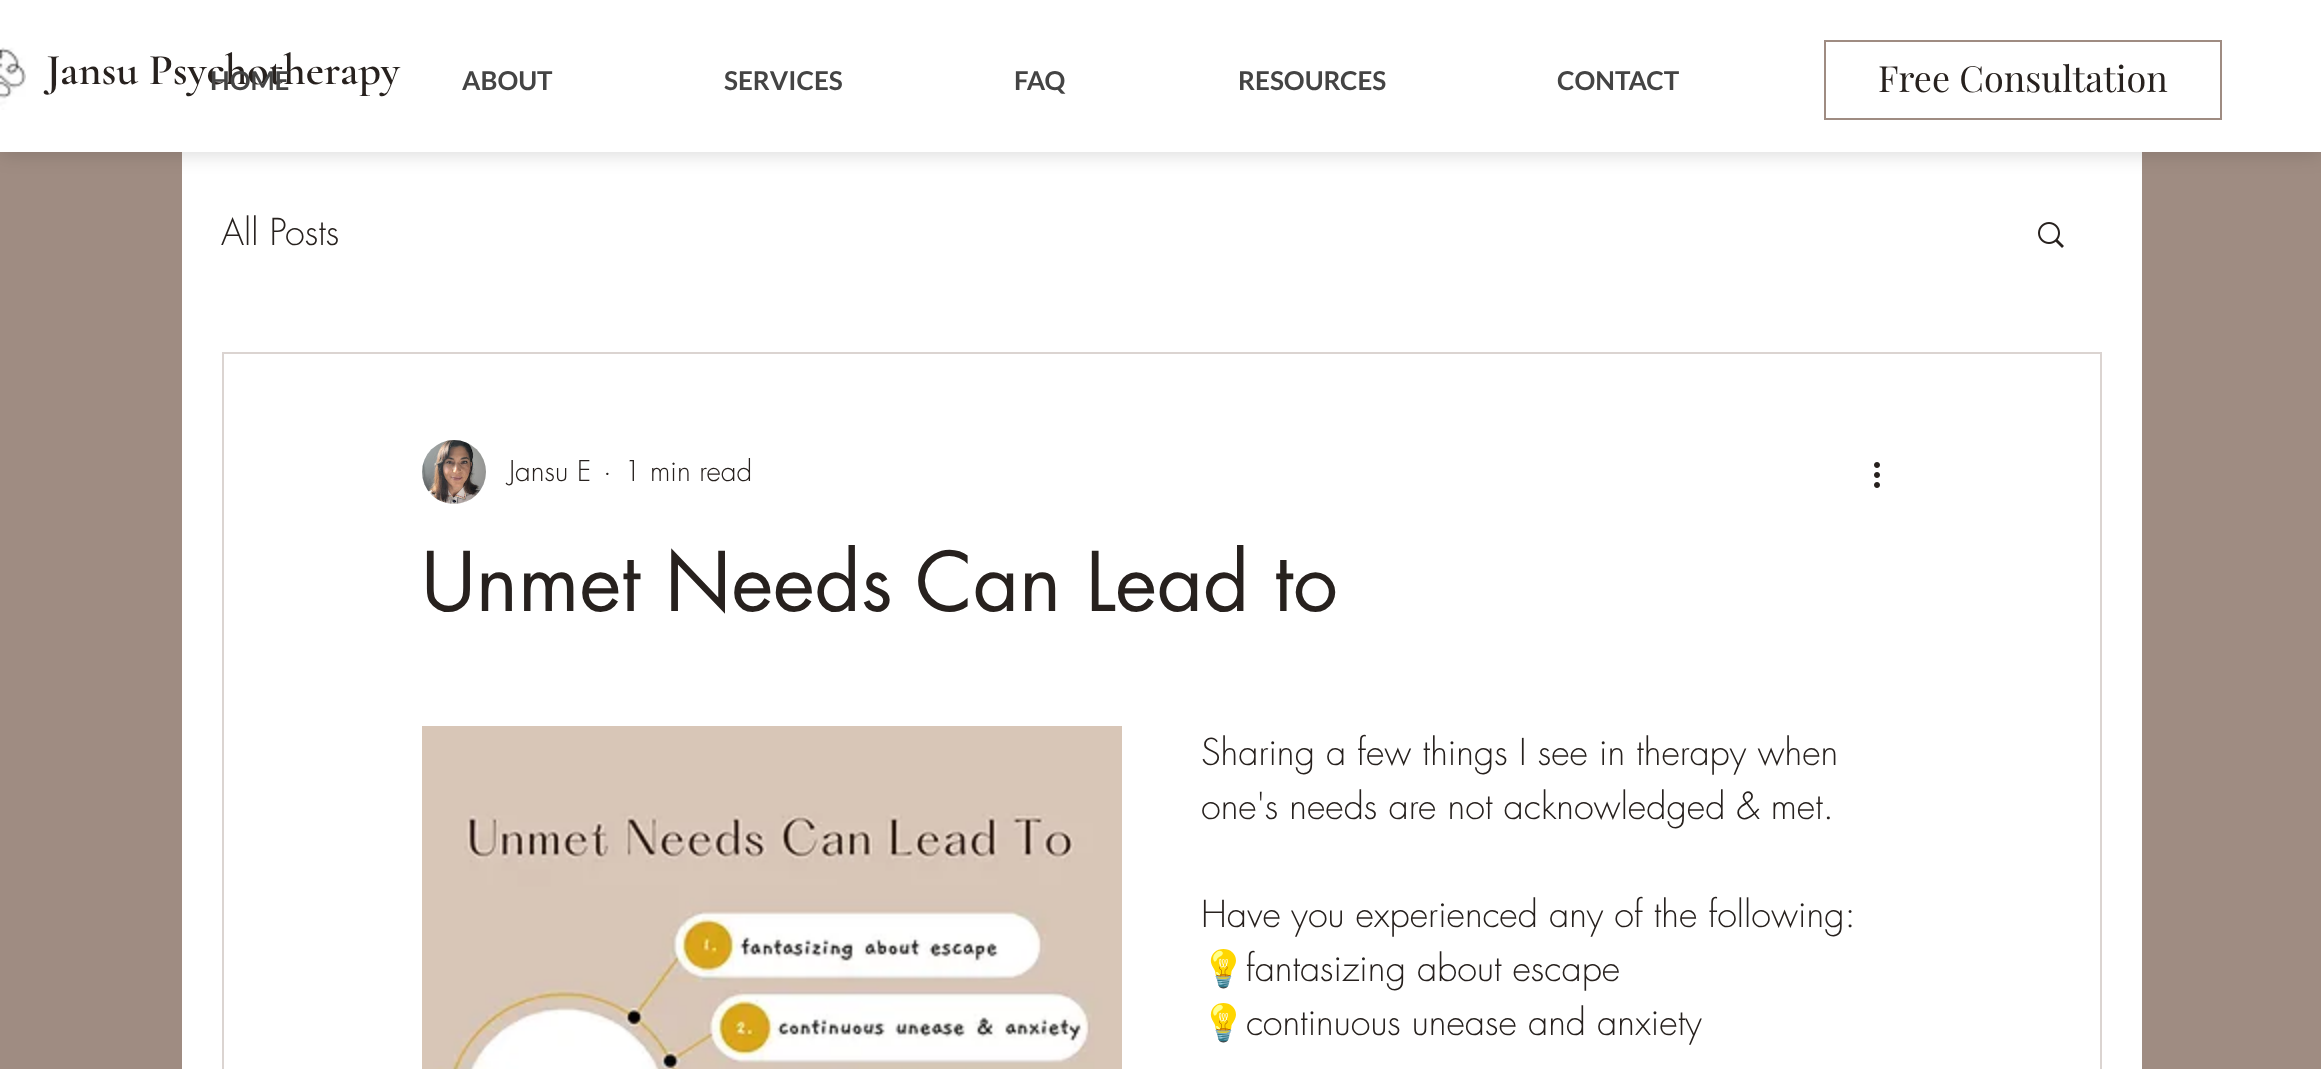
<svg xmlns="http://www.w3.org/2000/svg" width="2321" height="1069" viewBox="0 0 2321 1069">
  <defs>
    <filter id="blur1" x="-50%" y="-200%" width="200%" height="500%"><feGaussianBlur stdDeviation="10"/></filter>
  </defs>
  <rect width="100%" height="100%" fill="#9f8c82"/>
  <rect x="182" y="152" width="1960" height="917" fill="#ffffff"/>
  <rect x="0" y="2" width="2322" height="152" fill="#000000" fill-opacity="0.15" filter="url(#blur1)"/>
  <rect x="0" y="0" width="2321" height="152" fill="#ffffff"/>
  <image x="0" y="47" width="26" height="63" href="img1.png"/>
  <text x="46" y="84" font-family="Cormorant Garamond" font-size="44" font-weight="600" fill="#27211e">Jansu Psychotherapy</text>
  <text x="210" y="90" font-family="Lato" font-size="26" font-weight="bold" fill="#444444">HOME</text>
  <text x="462" y="90" font-family="Lato" font-size="26" font-weight="bold" fill="#444444">ABOUT</text>
  <text x="724" y="90" font-family="Lato" font-size="26" font-weight="bold" fill="#444444">SERVICES</text>
  <text x="1014" y="90" font-family="Lato" font-size="26" font-weight="bold" fill="#444444">FAQ</text>
  <text x="1238" y="90" font-family="Lato" font-size="26" font-weight="bold" fill="#444444">RESOURCES</text>
  <text x="1557" y="90" font-family="Lato" font-size="26" font-weight="bold" fill="#444444">CONTACT</text>
  <rect x="1825" y="41" width="396" height="78" fill="none" stroke="#9f8c82" stroke-width="2"/>
  <text x="1878" y="92" font-family="Playfair Display" font-size="36" fill="#27211e">Free Consultation</text>
  <text x="221" y="245" font-family="futura" font-size="36" font-weight="300" fill="#27211e">All Posts</text>
  <image x="2038" y="222" width="26" height="26" href="img2.png"/>
  <rect x="223" y="353" width="1878" height="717" fill="none" stroke="#dbd4d1" stroke-width="2"/>
  <image x="422" y="440" width="64" height="64" href="img3.png"/>
  <text x="509" y="481" font-family="futura" font-size="28" font-weight="300" fill="#27211e">Jansu E</text>
  <text x="603" y="481" font-family="futura" font-size="28" font-weight="300" fill="#27211e">·</text>
  <text x="624" y="481" font-family="futura" font-size="28" font-weight="300" fill="#27211e">1 min read</text>
  <image x="1874" y="462" width="6" height="26" href="img4.png"/>
  <text x="421" y="611" font-family="futura" font-size="80" fill="#27211e">Unmet Needs Can Lead to</text>
  <image x="422" y="726" width="700" height="343" href="img5.png"/>
  <text x="1201" y="765" font-family="futura" font-size="36" font-weight="300" fill="#27211e">Sharing a few things I see in therapy when</text>
  <text x="1201" y="819" font-family="futura" font-size="36" font-weight="300" fill="#27211e">one's needs are not acknowledged &amp; met.</text>
  <text x="1201" y="927" font-family="futura" font-size="36" font-weight="300" fill="#27211e">Have you experienced any of the following:</text>
  <text x="1201" y="981" font-family="Noto Color Emoji" font-size="36" fill="#27211e">💡</text>
  <text x="1246" y="981" font-family="futura" font-size="36" font-weight="300" fill="#27211e">fantasizing about escape</text>
  <text x="1201" y="1035" font-family="Noto Color Emoji" font-size="36" fill="#27211e">💡</text>
  <text x="1246" y="1035" font-family="futura" font-size="36" font-weight="300" fill="#27211e">continuous unease and anxiety</text>
</svg>
